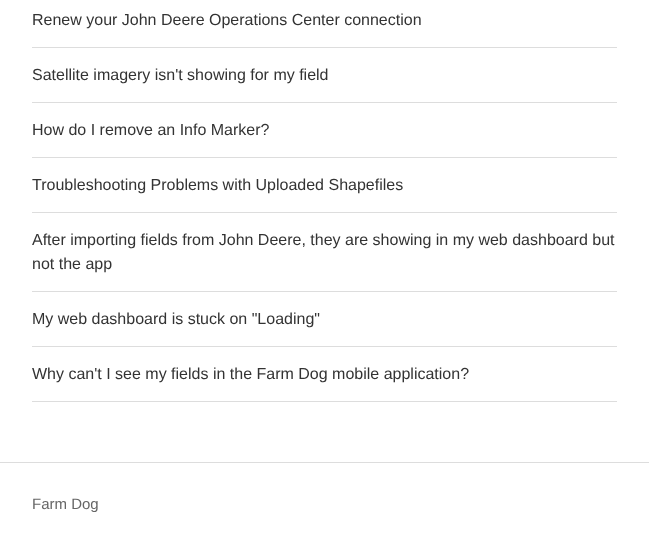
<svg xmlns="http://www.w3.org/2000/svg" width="649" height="545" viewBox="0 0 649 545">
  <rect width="100%" height="100%" fill="#ffffff"/>
  <rect x="32" y="47" width="585" height="1" fill="#dddddd"/>
  <text x="32" y="25" font-family="Liberation Sans" font-size="16" fill="#333333">Renew your John Deere Operations Center connection</text>
  <rect x="32" y="102" width="585" height="1" fill="#dddddd"/>
  <text x="32" y="80" font-family="Liberation Sans" font-size="16" fill="#333333">Satellite imagery isn't showing for my field</text>
  <rect x="32" y="157" width="585" height="1" fill="#dddddd"/>
  <text x="32" y="135" font-family="Liberation Sans" font-size="16" fill="#333333">How do I remove an Info Marker?</text>
  <rect x="32" y="212" width="585" height="1" fill="#dddddd"/>
  <text x="32" y="190" font-family="Liberation Sans" font-size="16" fill="#333333">Troubleshooting Problems with Uploaded Shapefiles</text>
  <rect x="32" y="291" width="585" height="1" fill="#dddddd"/>
  <text x="32" y="245" font-family="Liberation Sans" font-size="16" fill="#333333">After importing fields from John Deere, they are showing in my web dashboard but</text>
  <text x="32" y="269" font-family="Liberation Sans" font-size="16" fill="#333333">not the app</text>
  <rect x="32" y="346" width="585" height="1" fill="#dddddd"/>
  <text x="32" y="324" font-family="Liberation Sans" font-size="16" fill="#333333">My web dashboard is stuck on "Loading"</text>
  <rect x="32" y="401" width="585" height="1" fill="#dddddd"/>
  <text x="32" y="379" font-family="Liberation Sans" font-size="16" fill="#333333">Why can't I see my fields in the Farm Dog mobile application?</text>
  <rect x="0" y="462" width="649" height="1" fill="#dddddd"/>
  <text x="32" y="509" font-family="Liberation Sans" font-size="15" fill="#666666">Farm Dog</text>
</svg>
